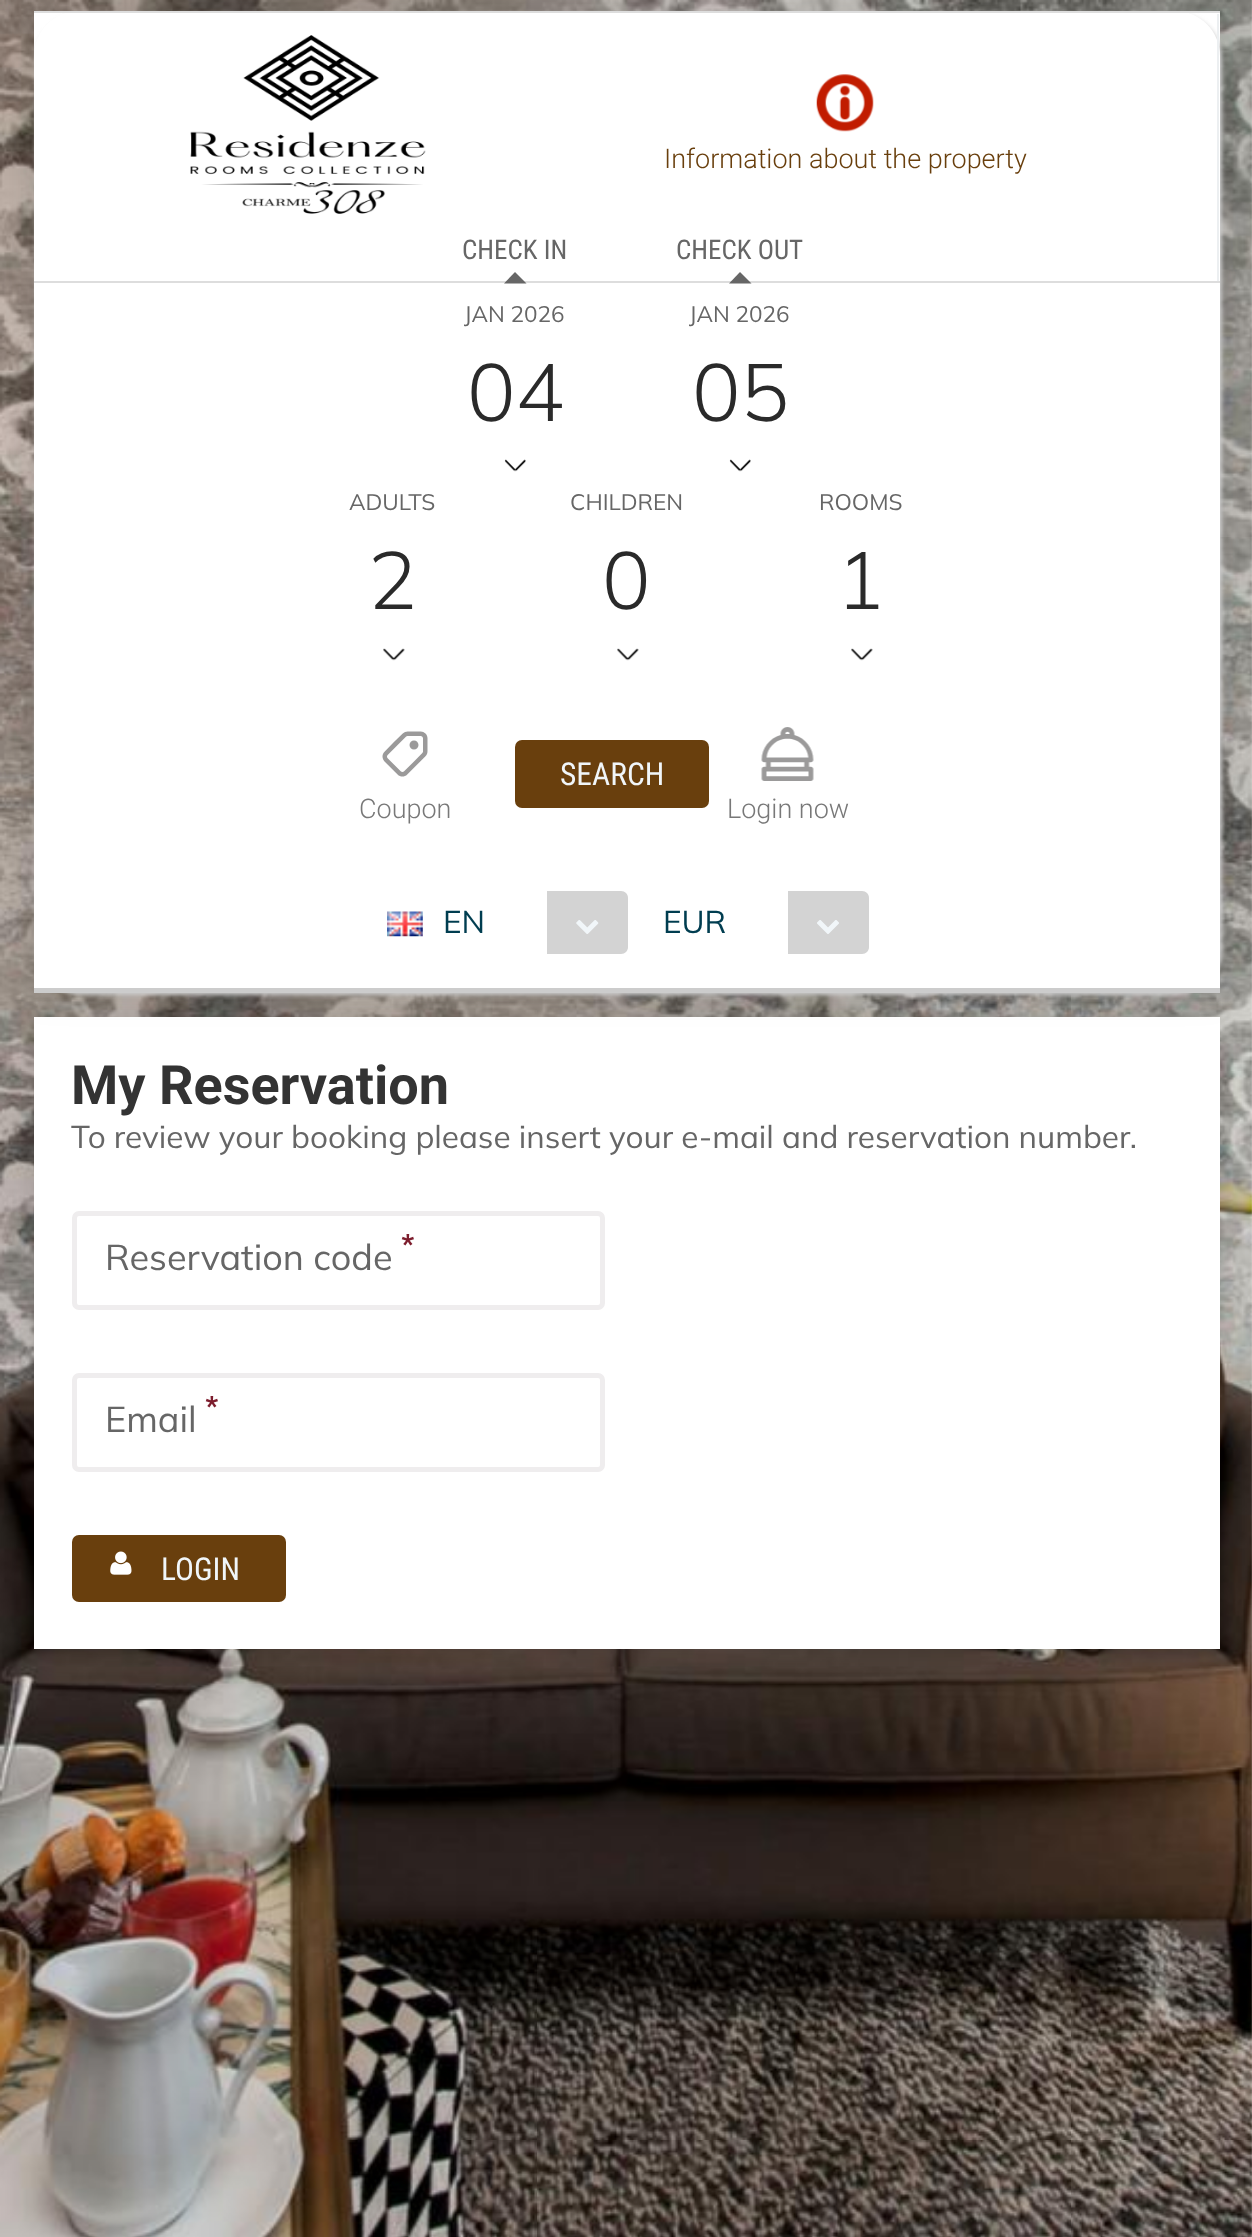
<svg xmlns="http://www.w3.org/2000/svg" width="1252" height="2237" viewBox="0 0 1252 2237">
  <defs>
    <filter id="blur1" x="-50%" y="-200%" width="200%" height="500%"><feGaussianBlur stdDeviation="17"/></filter>
    <filter id="blur2" x="-50%" y="-200%" width="200%" height="500%"><feGaussianBlur stdDeviation="2"/></filter>
  </defs>
  <rect width="100%" height="100%" fill="#ffffff"/>
  <image x="0" y="0" width="1252" height="2237" href="img1.png"/>
  <rect x="34" y="1017" width="1186" height="632" fill="#000000" fill-opacity="0.15" filter="url(#blur1)"/>
  <rect x="34" y="1017" width="1186" height="632" fill="#ffffff"/>
  <rect x="34" y="11" width="1186" height="981" fill="#000000" fill-opacity="0.15" filter="url(#blur1)"/>
  <rect x="34" y="13" width="1186" height="43" fill="#ffffff"/>
  <rect x="36" y="14" width="1186" height="981" rx="45" fill="#cccccc" filter="url(#blur2)"/>
  <path d="M79 11H1175C1200 11 1220 31 1220 56V992H34V56C34 31 54 11 79 11Z" fill="#ffffff"/>
  <rect x="34" y="988" width="1186" height="5" fill="#cccccc"/>
  <rect x="34" y="11" width="1186" height="2" fill="#dddddd"/>
  <rect x="1217" y="14" width="2" height="267" fill="#eceff1"/>
  <image x="190" y="35" width="236" height="179" href="img2.png"/>
  <image x="816" y="74" width="58" height="58" href="img3.png"/>
  <text x="664" y="168" font-family="Roboto" font-size="27" font-weight="300" fill="#693f0d">Information about the property</text>
  <rect x="34" y="281" width="1186" height="2" fill="#dddddd"/>
  <text x="462" y="259" font-family="Roboto Condensed" font-size="27" fill="#666666">CHECK IN</text>
  <path d="M526.5 283.5H504L515 272Z" fill="#666666"/>
  <text x="464" y="322" font-family="Mulish" font-size="22.5" fill="#666666">JAN 2026</text>
  <text x="467" y="421" font-family="Mulish" font-size="81" font-weight="300" fill="#2a2a2a">04</text>
  <image x="504" y="459" width="22" height="13" href="img4.png"/>
  <text x="676" y="259" font-family="Roboto Condensed" font-size="27" fill="#666666">CHECK OUT</text>
  <path d="M751.5 283.5H729L740 272Z" fill="#666666"/>
  <text x="689" y="322" font-family="Mulish" font-size="22.5" fill="#666666">JAN 2026</text>
  <text x="692" y="421" font-family="Mulish" font-size="81" font-weight="300" fill="#2a2a2a">05</text>
  <image x="729" y="459" width="22" height="13" href="img4.png"/>
  <text x="349" y="510" font-family="Mulish" font-size="22.5" fill="#666666">ADULTS</text>
  <text x="368" y="609" font-family="Mulish" font-size="81" font-weight="300" fill="#2a2a2a">2</text>
  <image x="383" y="648" width="22" height="13" href="img5.png"/>
  <text x="570" y="510" font-family="Mulish" font-size="22.5" fill="#666666">CHILDREN</text>
  <text x="602" y="609" font-family="Mulish" font-size="81" font-weight="300" fill="#2a2a2a">0</text>
  <image x="617" y="648" width="22" height="13" href="img5.png"/>
  <text x="819" y="510" font-family="Mulish" font-size="22.5" fill="#666666">ROOMS</text>
  <text x="836" y="609" font-family="Mulish" font-size="81" font-weight="300" fill="#2a2a2a">1</text>
  <image x="851" y="648" width="22" height="13" href="img5.png"/>
  <rect x="515" y="740" width="194" height="68" rx="7" fill="#693f0d"/>
  <text x="560" y="785" font-family="Roboto Condensed" font-size="31.5" fill="#f1f6f9">SEARCH</text>
  <image x="382" y="731" width="46" height="46" href="img6.png"/>
  <text x="359" y="818" font-family="Roboto" font-size="27" font-weight="300" fill="#787878">Coupon</text>
  <image x="761" y="727" width="53" height="54" href="img7.png"/>
  <text x="727" y="818" font-family="Roboto" font-size="27" font-weight="300" fill="#787878">Login now</text>
  <image x="387" y="911" width="36" height="26" href="img8.png"/>
  <text x="443" y="933" font-family="Mulish" font-size="31.5" fill="#003d50">EN</text>
  <path d="M547 891H621C625 891 628 894 628 898V947C628 951 625 954 621 954H547Z" fill="#d3d3d3"/>
  <image x="576" y="920" width="23" height="14" href="img9.png"/>
  <text x="663" y="933" font-family="Mulish" font-size="31.5" fill="#003d50">EUR</text>
  <path d="M788 891H862C866 891 869 894 869 898V947C869 951 866 954 862 954H788Z" fill="#d3d3d3"/>
  <image x="817" y="920" width="22" height="14" href="img10.png"/>
  <text x="71" y="1104" font-family="Roboto" font-size="54" font-weight="bold" fill="#333333">My Reservation</text>
  <text x="71" y="1148" font-family="Mulish" font-size="31.5" fill="#666666">To review your booking please insert your e-mail and reservation number.</text>
  <rect x="74.5" y="1213.5" width="528" height="94" rx="4.5" fill="none" stroke="#efedee" stroke-width="5"/>
  <text x="401" y="1256" font-family="Mulish" font-size="30" font-weight="bold" fill="#7d1d2d">*</text>
  <text x="105" y="1270" font-family="Mulish" font-size="36" fill="#666666">Reservation code</text>
  <rect x="74.5" y="1375.5" width="528" height="94" rx="4.5" fill="none" stroke="#efedee" stroke-width="5"/>
  <text x="205" y="1418" font-family="Mulish" font-size="30" font-weight="bold" fill="#7d1d2d">*</text>
  <text x="105" y="1432" font-family="Mulish" font-size="36" fill="#666666">Email</text>
  <rect x="72" y="1535" width="214" height="67" rx="7" fill="#693f0d"/>
  <image x="110" y="1551" width="22" height="24" href="img11.png"/>
  <text x="161" y="1580" font-family="Roboto Condensed" font-size="31.5" fill="#f1f6f9">LOGIN</text>
</svg>
